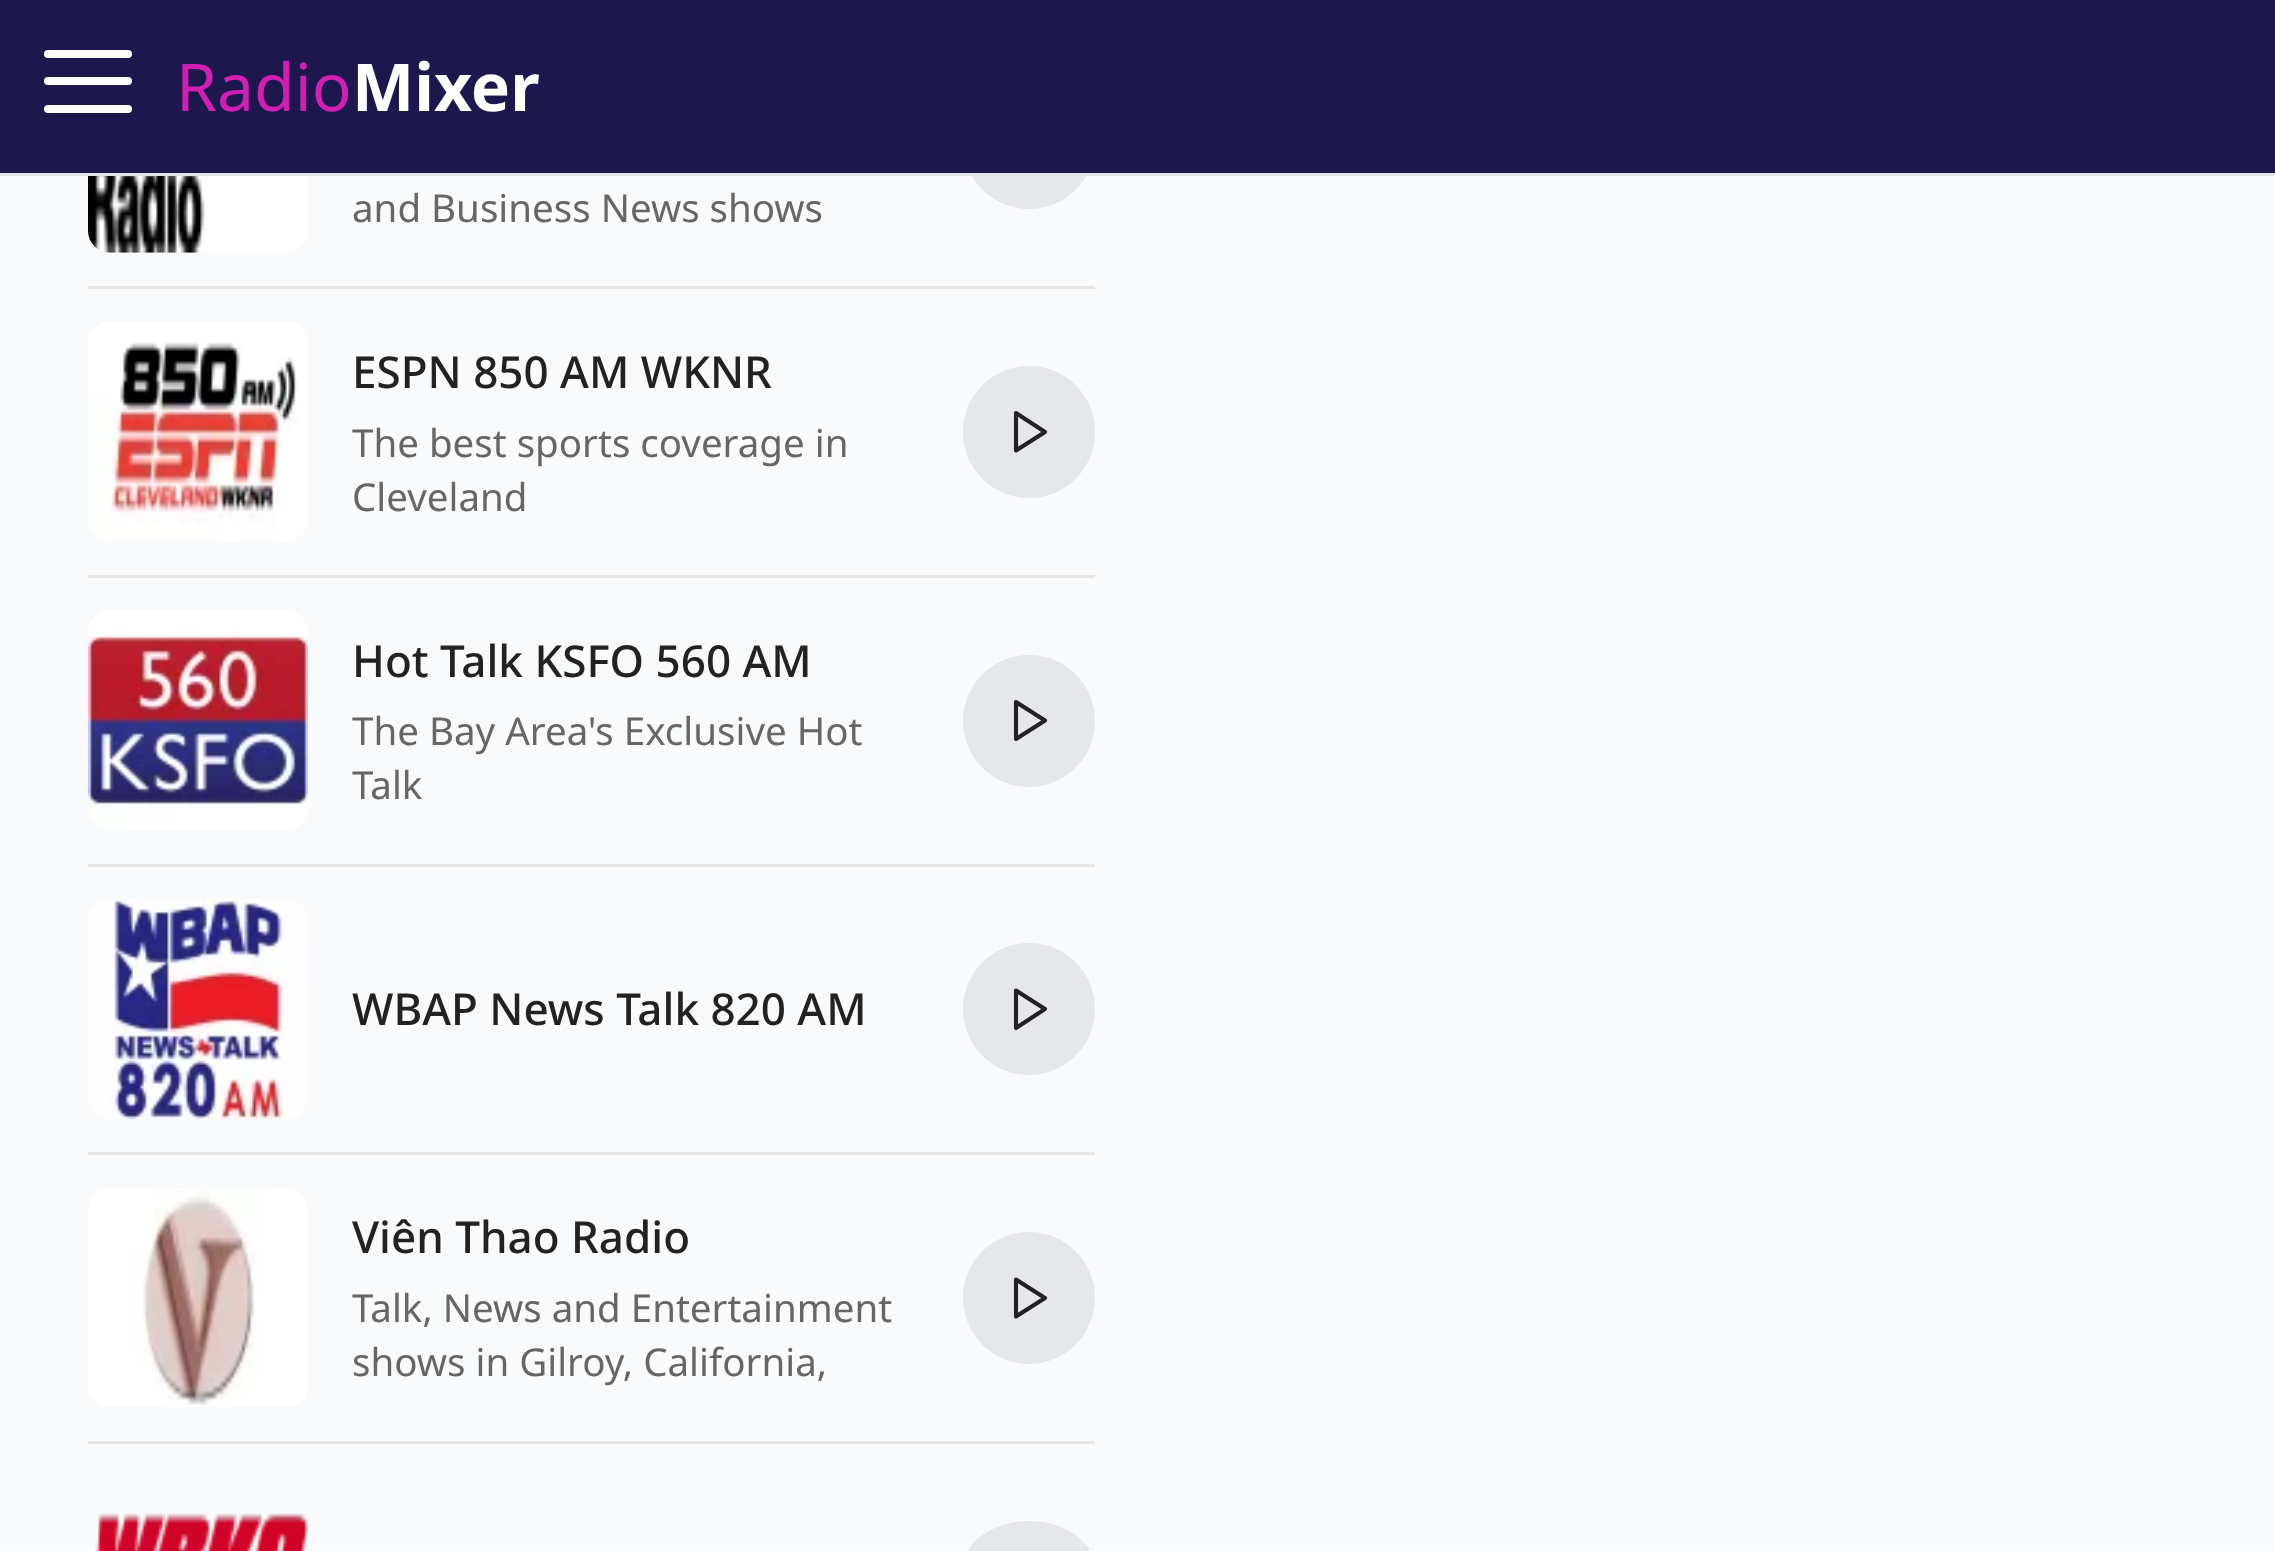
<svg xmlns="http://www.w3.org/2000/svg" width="2275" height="1551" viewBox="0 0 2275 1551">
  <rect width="100%" height="100%" fill="#f9fafb"/>
  <circle cx="1029" cy="143" r="66" fill="#e5e7eb"/>
  <rect x="0" y="0" width="2275" height="173" fill="#1c174d"/>
  <rect x="0" y="173" width="2275" height="3" fill="#e6e6e6"/>
  <rect x="44" y="77" width="88" height="8" rx="4" fill="#ffffff"/>
  <rect x="44" y="50" width="88" height="8" rx="4" fill="#ffffff"/>
  <rect x="44" y="105" width="88" height="8" rx="4" fill="#ffffff"/>
  <text x="176" y="111" font-family="Noto Sans" font-size="66" fill="#d11eb3">Radio</text>
  <text x="352" y="111" font-family="Noto Sans" font-size="66" font-weight="bold" fill="#ffffff">Mixer</text>
  <rect x="88" y="286" width="1007" height="3" fill="#e6e6e6"/>
  <image x="88" y="176" width="220" height="77" href="img1.png"/>
  <text x="352" y="222" font-family="Noto Sans" font-size="38.5" fill="#666666">and Business News shows</text>
  <rect x="88" y="575" width="1007" height="3" fill="#e6e6e6"/>
  <image x="88" y="322" width="220" height="219" href="img2.png"/>
  <text x="352" y="388" font-family="Noto Sans" font-size="44" font-weight="500" fill="#222222">ESPN 850 AM WKNR</text>
  <text x="352" y="457" font-family="Noto Sans" font-size="38.5" fill="#666666">The best sports coverage in</text>
  <text x="352" y="511" font-family="Noto Sans" font-size="38.5" fill="#666666">Cleveland</text>
  <circle cx="1029" cy="432" r="66" fill="#e5e7eb"/>
  <path d="M1016 413L1045 432L1016 450.5Z" fill="none" stroke="#222222" stroke-width="4.1" stroke-linecap="round" stroke-linejoin="round"/>
  <rect x="88" y="864" width="1007" height="3" fill="#e6e6e6"/>
  <image x="88" y="611" width="220" height="219" href="img3.png"/>
  <text x="352" y="677" font-family="Noto Sans" font-size="44" font-weight="500" fill="#222222">Hot Talk KSFO 560 AM</text>
  <text x="352" y="745" font-family="Noto Sans" font-size="38.5" fill="#666666">The Bay Area's Exclusive Hot</text>
  <text x="352" y="799" font-family="Noto Sans" font-size="38.5" fill="#666666">Talk</text>
  <circle cx="1029" cy="721" r="66" fill="#e5e7eb"/>
  <path d="M1016 702L1045 720.5L1016 739Z" fill="none" stroke="#222222" stroke-width="4.1" stroke-linecap="round" stroke-linejoin="round"/>
  <rect x="88" y="1152" width="1007" height="3" fill="#e6e6e6"/>
  <image x="88" y="899" width="220" height="220" href="img4.png"/>
  <text x="352" y="1025" font-family="Noto Sans" font-size="44" font-weight="500" fill="#222222">WBAP News Talk 820 AM</text>
  <circle cx="1029" cy="1009" r="66" fill="#e5e7eb"/>
  <path d="M1016 990.5L1045 1009L1016 1028Z" fill="none" stroke="#222222" stroke-width="4.1" stroke-linecap="round" stroke-linejoin="round"/>
  <rect x="88" y="1441" width="1007" height="3" fill="#e6e6e6"/>
  <image x="88" y="1188" width="220" height="219" href="img5.png"/>
  <text x="352" y="1253" font-family="Noto Sans" font-size="44" font-weight="500" fill="#222222">Viên Thao Radio</text>
  <text x="352" y="1322" font-family="Noto Sans" font-size="38.5" fill="#666666">Talk, News and Entertainment</text>
  <text x="352" y="1376" font-family="Noto Sans" font-size="38.5" fill="#666666">shows in Gilroy, California,</text>
  <circle cx="1029" cy="1298" r="66" fill="#e5e7eb"/>
  <path d="M1016 1279.5L1045 1298L1016 1316.5Z" fill="none" stroke="#222222" stroke-width="4.1" stroke-linecap="round" stroke-linejoin="round"/>
  <image x="95" y="1513" width="213" height="38" href="img6.png"/>
  <rect x="963" y="1521" width="132" height="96" rx="66" fill="#e5e7eb"/>
</svg>
